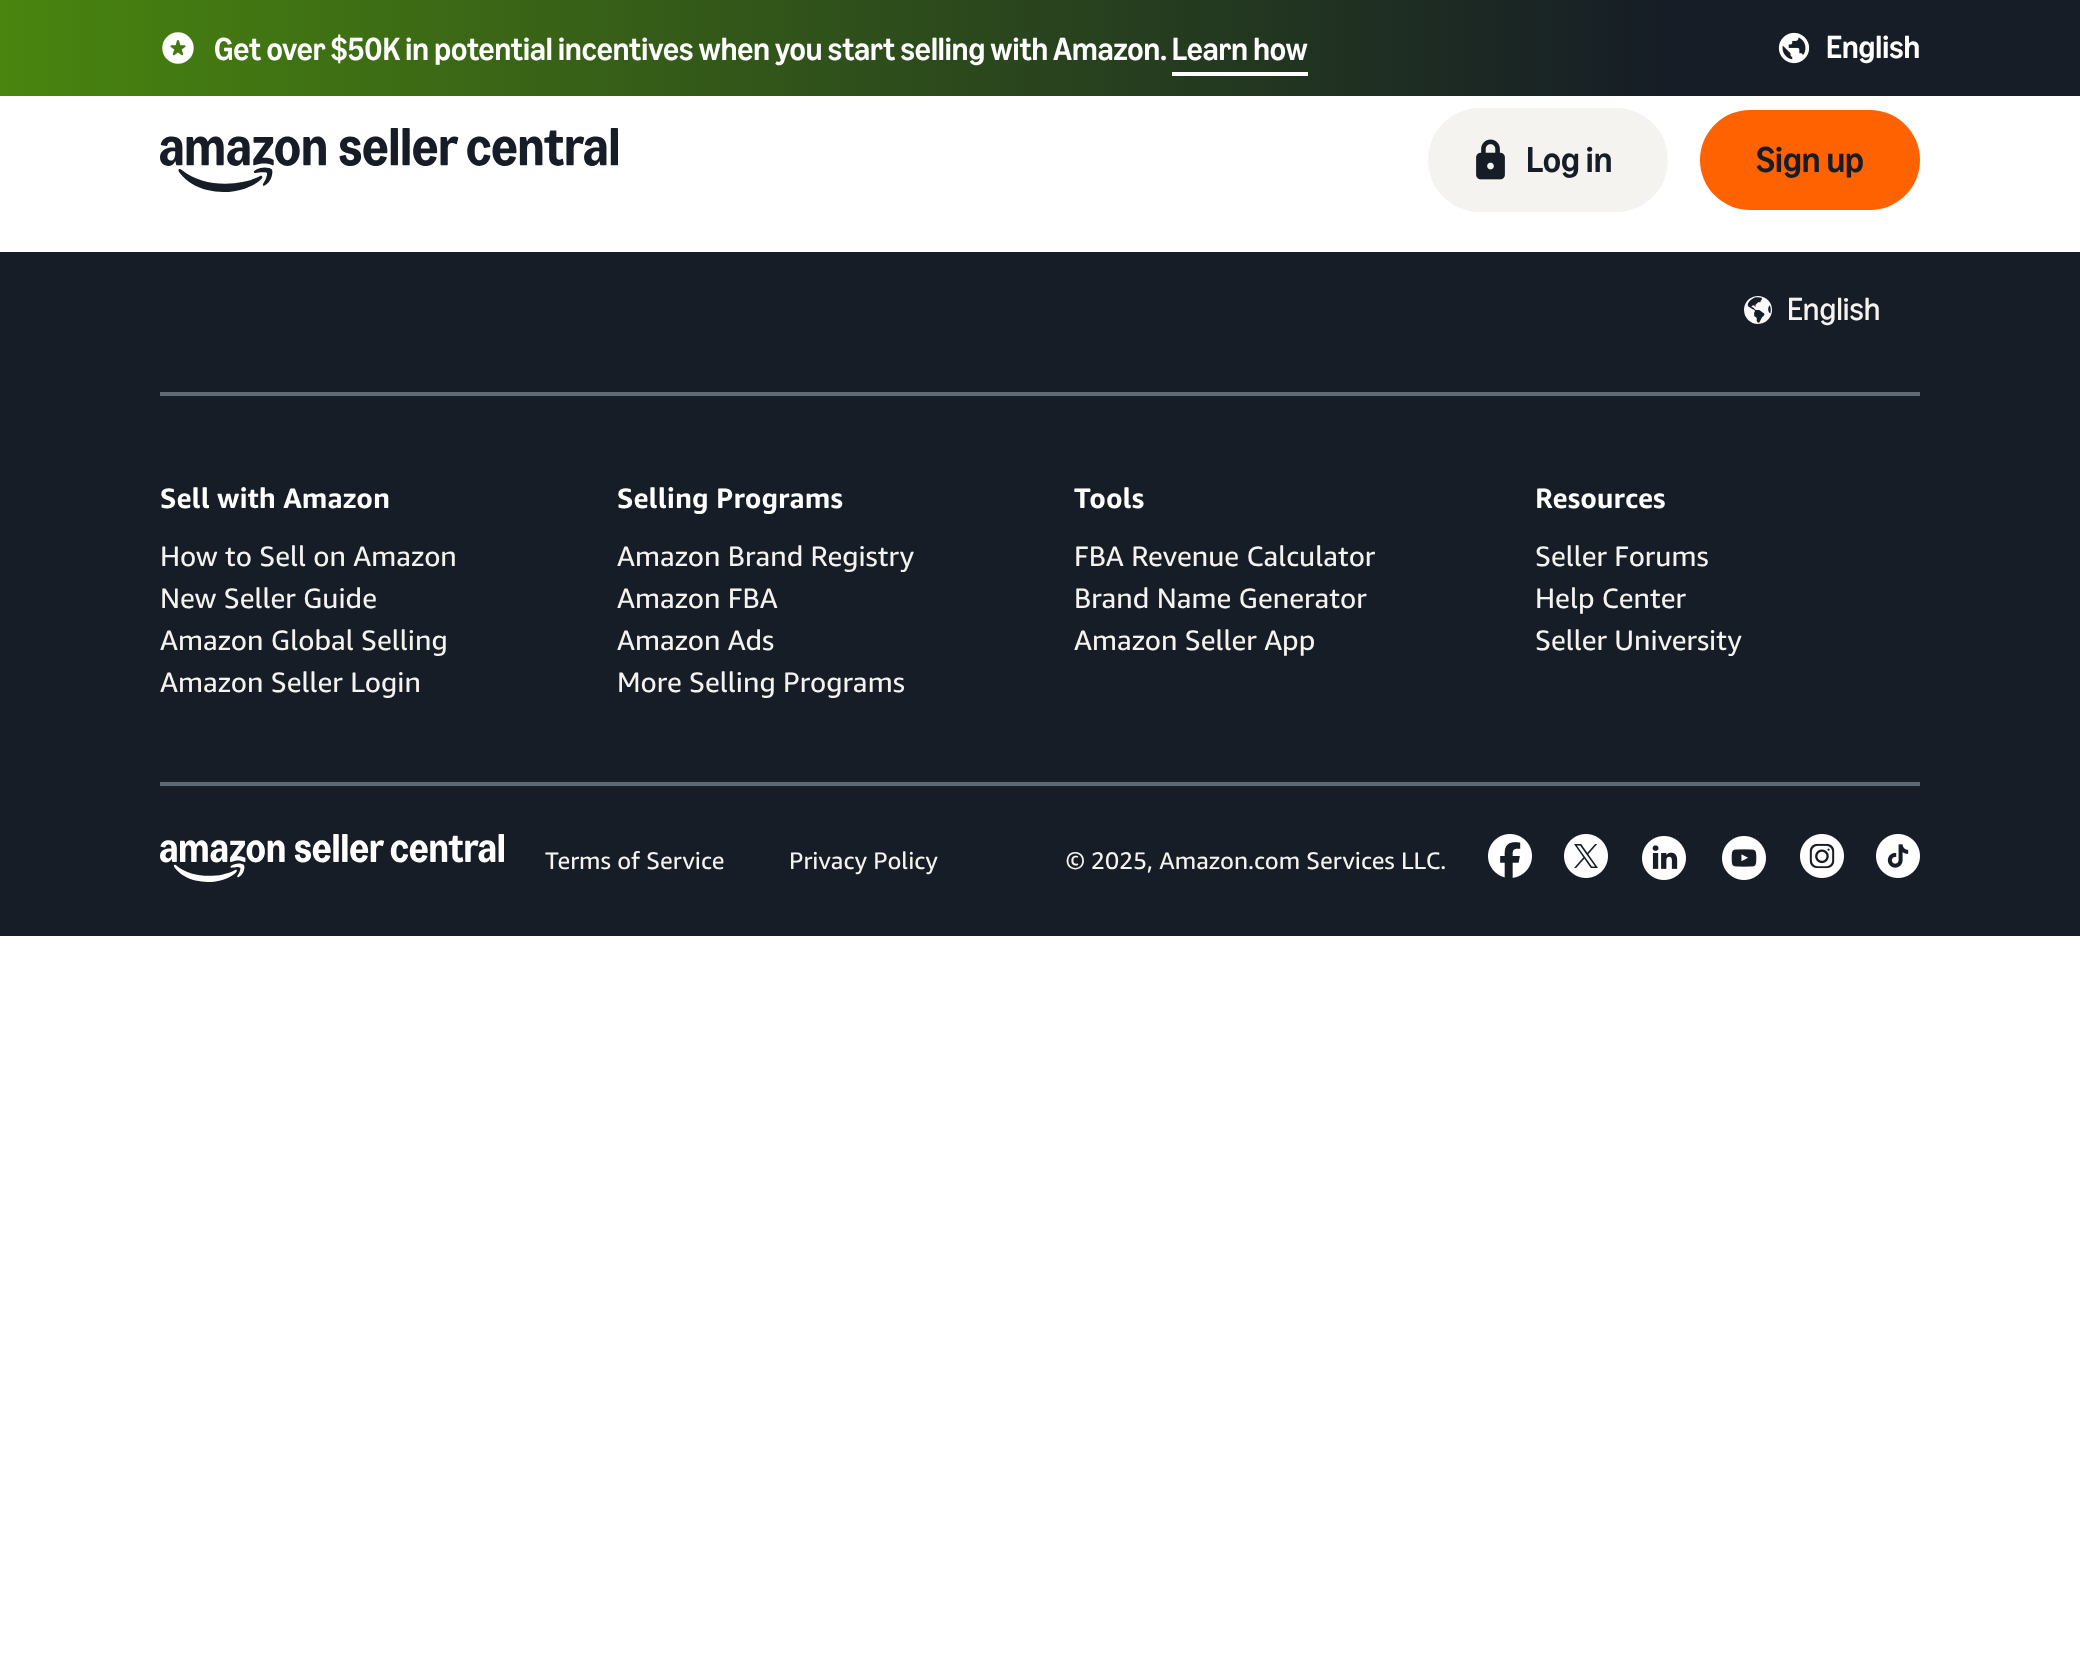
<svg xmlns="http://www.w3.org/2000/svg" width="2080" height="1664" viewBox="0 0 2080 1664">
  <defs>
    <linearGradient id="g1" gradientUnits="userSpaceOnUse" x1="0" y1="48" x2="2080" y2="48"><stop offset="0" stop-color="#49850f"/><stop offset="0.8" stop-color="#161d26"/></linearGradient>
  </defs>
  <rect width="100%" height="100%" fill="#ffffff"/>
  <rect x="0" y="0" width="2080" height="96" fill="url(#g1)"/>
  <image x="162" y="32" width="32" height="32" href="img1.png"/>
  <text x="214" y="60" font-family="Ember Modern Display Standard" font-size="32" font-weight="500" fill="#ffffff">Get over $50K in potential incentives when you start selling with Amazon. Learn how</text>
  <rect x="1172" y="72" width="136" height="4" fill="#ffffff"/>
  <image x="1778" y="32" width="32" height="32" href="img2.png"/>
  <text x="1826" y="58" font-family="Ember Modern Display Standard" font-size="32" font-weight="500" fill="#ffffff">English</text>
  <image x="160" y="128" width="458" height="64" href="img3.png"/>
  <rect x="1428" y="108" width="240" height="104" rx="52" fill="#f5f3ef"/>
  <image x="1476" y="139" width="29" height="41" href="img4.png"/>
  <text x="1526" y="172" font-family="Ember Modern Display Standard" font-size="36" font-weight="500" fill="#161d26">Log in</text>
  <rect x="1700" y="110" width="220" height="100" rx="50" fill="#ff6200"/>
  <text x="1756" y="172" font-family="Ember Modern Display Standard" font-size="36" font-weight="500" fill="#161d26">Sign up</text>
  <rect x="0" y="252" width="2080" height="684" fill="#161d26"/>
  <image x="1744" y="296" width="28" height="28" href="img5.png"/>
  <text x="1787" y="320" font-family="Ember Modern Display Standard" font-size="32" fill="#f5f3ef">English</text>
  <rect x="160" y="392" width="1760" height="4" fill="#5e6a78"/>
  <rect x="160" y="782" width="1760" height="4" fill="#5e6a78"/>
  <text x="160" y="508" font-family="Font" font-size="28" font-weight="bold" fill="#ffffff">Sell with Amazon</text>
  <text x="160" y="566" font-family="Font" font-size="28" fill="#f5f3ef">How to Sell on Amazon</text>
  <text x="160" y="608" font-family="Font" font-size="28" fill="#f5f3ef">New Seller Guide</text>
  <text x="160" y="650" font-family="Font" font-size="28" fill="#f5f3ef">Amazon Global Selling</text>
  <text x="160" y="692" font-family="Font" font-size="28" fill="#f5f3ef">Amazon Seller Login</text>
  <text x="617" y="508" font-family="Font" font-size="28" font-weight="bold" fill="#ffffff">Selling Programs</text>
  <text x="617" y="566" font-family="Font" font-size="28" fill="#f5f3ef">Amazon Brand Registry</text>
  <text x="617" y="608" font-family="Font" font-size="28" fill="#f5f3ef">Amazon FBA</text>
  <text x="617" y="650" font-family="Font" font-size="28" fill="#f5f3ef">Amazon Ads</text>
  <text x="617" y="692" font-family="Font" font-size="28" fill="#f5f3ef">More Selling Programs</text>
  <text x="1074" y="508" font-family="Font" font-size="28" font-weight="bold" fill="#ffffff">Tools</text>
  <text x="1074" y="566" font-family="Font" font-size="28" fill="#f5f3ef">FBA Revenue Calculator</text>
  <text x="1074" y="608" font-family="Font" font-size="28" fill="#f5f3ef">Brand Name Generator</text>
  <text x="1074" y="650" font-family="Font" font-size="28" fill="#f5f3ef">Amazon Seller App</text>
  <text x="1535" y="508" font-family="Font" font-size="28" font-weight="bold" fill="#ffffff">Resources</text>
  <text x="1535" y="566" font-family="Font" font-size="28" fill="#f5f3ef">Seller Forums</text>
  <text x="1535" y="608" font-family="Font" font-size="28" fill="#f5f3ef">Help Center</text>
  <text x="1535" y="650" font-family="Font" font-size="28" fill="#f5f3ef">Seller University</text>
  <image x="160" y="834" width="344" height="48" href="img6.png"/>
  <text x="545" y="869" font-family="Font" font-size="24" fill="#f5f3ef">Terms of Service</text>
  <text x="789" y="869" font-family="Font" font-size="24" fill="#f5f3ef">Privacy Policy</text>
  <text x="1066" y="869" font-family="Font" font-size="24" fill="#f5f3ef">© 2025, Amazon.com Services LLC.</text>
  <image x="1488" y="834" width="44" height="44" href="img7.png"/>
  <image x="1564" y="834" width="44" height="44" href="img8.png"/>
  <image x="1642" y="836" width="44" height="44" href="img9.png"/>
  <image x="1722" y="836" width="44" height="44" href="img10.png"/>
  <image x="1800" y="834" width="44" height="44" href="img11.png"/>
  <image x="1876" y="834" width="44" height="44" href="img12.png"/>
</svg>
